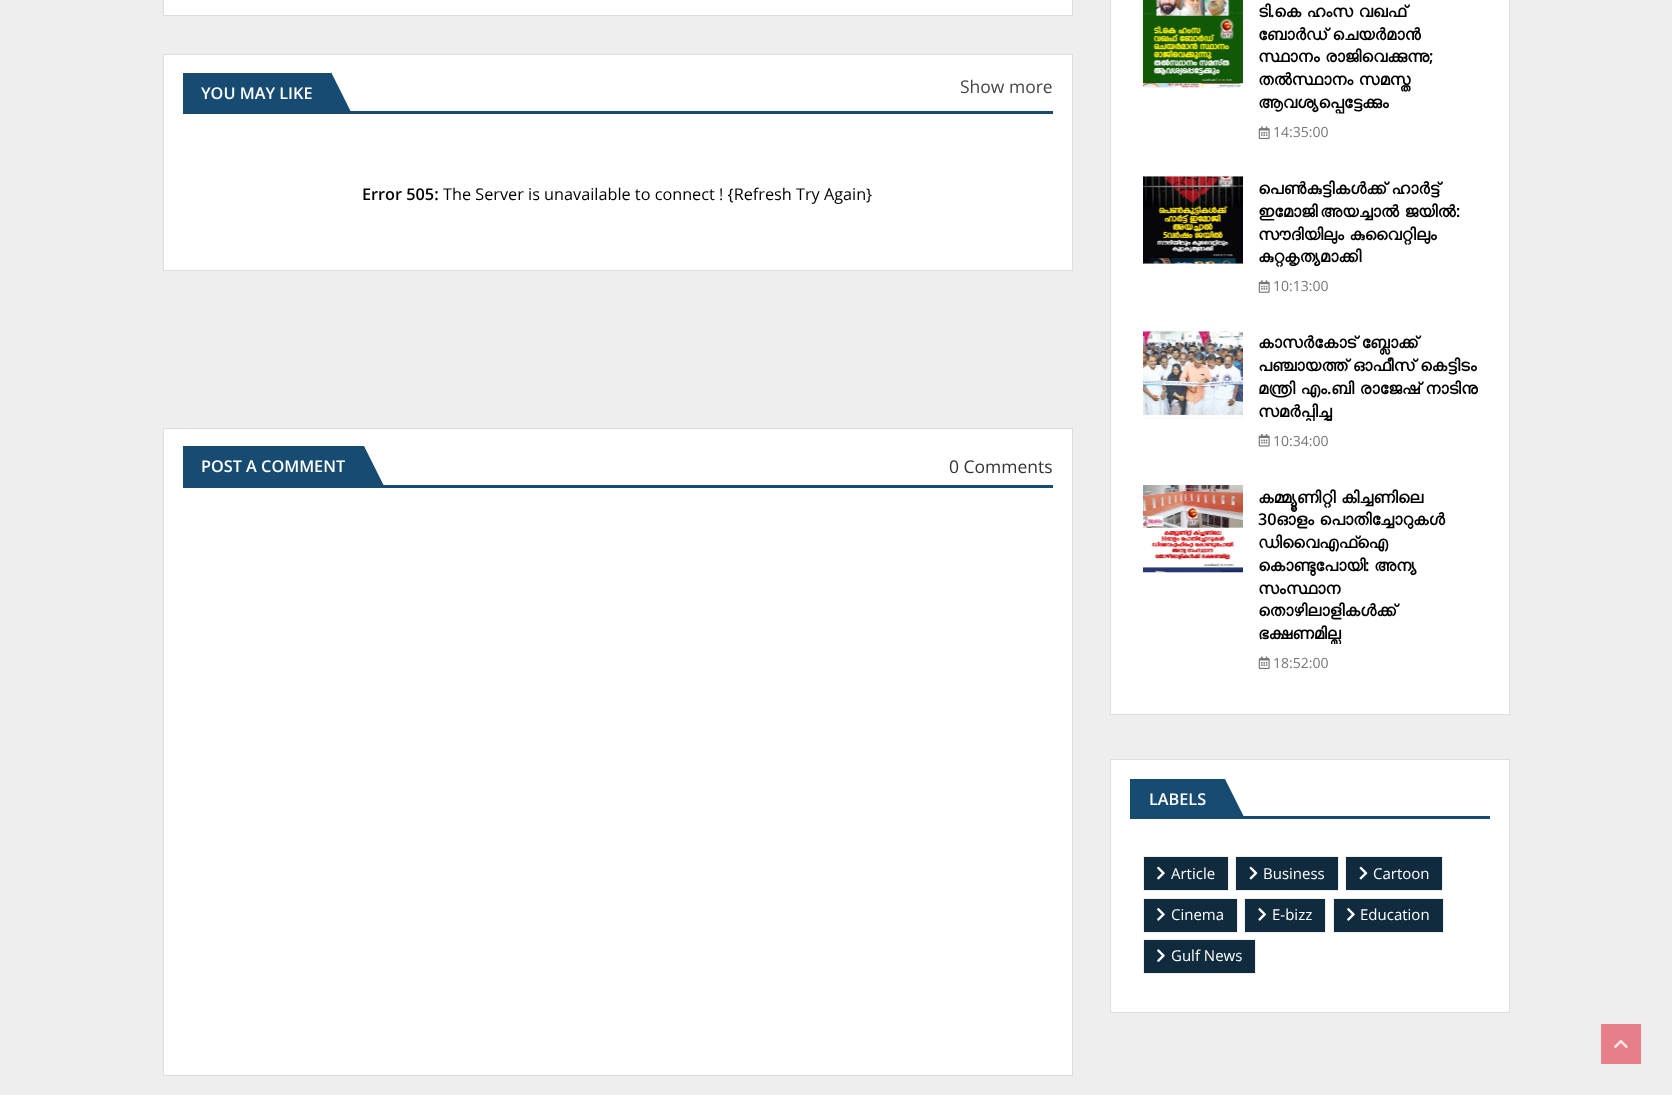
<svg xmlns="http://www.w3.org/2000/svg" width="1672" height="1095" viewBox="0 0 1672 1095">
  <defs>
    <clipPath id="clip1"><rect x="1258" y="0" width="220" height="114"/></clipPath>
    <clipPath id="clip2"><rect x="1258" y="331" width="220" height="90"/></clipPath>
    <clipPath id="clip3"><rect x="1258" y="485" width="220" height="159"/></clipPath>
  </defs>
  <rect width="100%" height="100%" fill="#eeeeee"/>
  <rect x="163.5" y="-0.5" width="909" height="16" fill="#ffffff" stroke="#dddddd"/>
  <rect x="163.5" y="54.5" width="909" height="216" fill="#ffffff" stroke="#dddddd"/>
  <rect x="183" y="111" width="870" height="3" fill="#174b71"/>
  <rect x="183" y="73" width="148" height="38" fill="#174b71"/>
  <text x="201" y="99" font-family="Open Sans" font-size="16.25" font-weight="600" fill="#ffffff">YOU MAY LIKE</text>
  <path d="M331 112V72L351 112Z" fill="#174b71"/>
  <text x="960" y="93" font-family="Open Sans" font-size="17.5" fill="#464646">Show more</text>
  <text x="362" y="200" font-family="Open Sans" font-size="16.25" font-weight="600" fill="#000000">Error 505:</text>
  <text x="443" y="200" font-family="Open Sans" font-size="16.25" fill="#000000">The Server is unavailable to connect ! {Refresh Try Again}</text>
  <rect x="163.5" y="428.5" width="909" height="647" fill="#ffffff" stroke="#dddddd"/>
  <rect x="183" y="485" width="870" height="3" fill="#174b71"/>
  <rect x="183" y="446" width="181" height="39" fill="#174b71"/>
  <text x="201" y="472" font-family="Open Sans" font-size="16.25" font-weight="600" fill="#ffffff">POST A COMMENT</text>
  <path d="M364 486V446L384 486Z" fill="#174b71"/>
  <text x="949" y="473" font-family="Open Sans" font-size="17.5" fill="#333333">0 Comments</text>
  <rect x="1110.5" y="-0.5" width="399" height="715" fill="#ffffff" stroke="#dddddd"/>
  <rect x="1143" y="87" width="100" height="1" fill="#f8f8f8"/>
  <image x="1143" y="0" width="100" height="88" href="img1.png"/>
  <g clip-path="url(#clip1)">
    <text x="1258" y="17" font-family="FreeSans" font-size="16.25" font-weight="bold" fill="#000000">ടി</text>
  </g>
  <text x="1270" y="17" font-family="Open Sans" font-size="16.25" font-weight="600" fill="#000000">.</text>
  <text x="1274" y="17" word-spacing="-1" font-family="FreeSans" font-size="16.25" font-weight="bold" fill="#000000">കെ ഹംസ വഖഫ്</text>
  <text x="1258" y="40" word-spacing="-1" font-family="FreeSans" font-size="16.25" font-weight="bold" fill="#000000">ബോര്‍ഡ് ചെയര്‍മാന്‍</text>
  <text x="1258" y="62" word-spacing="-1" font-family="FreeSans" font-size="16.25" font-weight="bold" fill="#000000">സ്ഥാനം രാജിവെക്കുന്നു</text>
  <text x="1429" y="62" font-family="Open Sans" font-size="16.25" font-weight="600" fill="#000000">;</text>
  <text x="1258" y="85" word-spacing="-1" font-family="FreeSans" font-size="16.25" font-weight="bold" fill="#000000">തല്‍സ്ഥാനം സമസ്ത</text>
  <text x="1258" y="108" font-family="FreeSans" font-size="16.25" font-weight="bold" fill="#000000">ആവശ്യപ്പെട്ടേക്കും</text>
  <image x="1258" y="126" width="12" height="14" href="img2.png"/>
  <text x="1273" y="137" font-family="Open Sans" font-size="14" fill="#76767a">14:35:00</text>
  <rect x="1143" y="176" width="100" height="88" fill="#f8f8f8"/>
  <image x="1143" y="176" width="100" height="88" href="img3.png"/>
  <text x="1258" y="194" word-spacing="-1" font-family="FreeSans" font-size="16.25" font-weight="bold" fill="#000000">പെണ്‍കുട്ടികള്‍ക്ക് ഹാര്‍ട്ട്</text>
  <text x="1258" y="217" font-family="FreeSans" font-size="16.25" font-weight="bold" fill="#000000">ഇമോജി</text>
  <text x="1320" y="217" word-spacing="-1" font-family="FreeSans" font-size="16.25" font-weight="bold" fill="#000000">അയച്ചാല്‍ ജയില്‍:</text>
  <text x="1258" y="240" word-spacing="-1" font-family="FreeSans" font-size="16.25" font-weight="bold" fill="#000000">സൗദിയിലും കുവൈറ്റിലും</text>
  <text x="1258" y="262" font-family="FreeSans" font-size="16.25" font-weight="bold" fill="#000000">കുറ്റകൃത്യമാക്കി</text>
  <image x="1258" y="280" width="12" height="13" href="img4.png"/>
  <text x="1273" y="291" font-family="Open Sans" font-size="14" fill="#76767a">10:13:00</text>
  <rect x="1143" y="331" width="100" height="88" fill="#f8f8f8"/>
  <image x="1143" y="331" width="100" height="87" href="img5.png"/>
  <text x="1258" y="348" word-spacing="-1" font-family="FreeSans" font-size="16.25" font-weight="bold" fill="#000000">കാസര്‍കോട് ബ്ലോക്ക്</text>
  <text x="1258" y="371" word-spacing="-1" font-family="FreeSans" font-size="16.25" font-weight="bold" fill="#000000">പഞ്ചായത്ത് ഓഫീസ് കെട്ടിടം</text>
  <text x="1258" y="394" word-spacing="-1" font-family="FreeSans" font-size="16.25" font-weight="bold" fill="#000000">മന്ത്രി എം</text>
  <text x="1327" y="394" font-family="Open Sans" font-size="16.25" font-weight="600" fill="#000000">.</text>
  <g clip-path="url(#clip2)">
    <text x="1331" y="394" word-spacing="-1" font-family="FreeSans" font-size="16.25" font-weight="bold" fill="#000000">ബി രാജേഷ് നാടിനു</text>
    <text x="1258" y="417" font-family="FreeSans" font-size="16.25" font-weight="bold" fill="#000000">സമര്‍പ്പിച്ചു</text>
  </g>
  <image x="1258" y="434" width="12" height="13" href="img6.png"/>
  <text x="1273" y="446" font-family="Open Sans" font-size="14" fill="#76767a">10:34:00</text>
  <rect x="1143" y="572" width="100" height="1" fill="#f8f8f8"/>
  <image x="1143" y="485" width="100" height="88" href="img7.png"/>
  <text x="1258" y="503" word-spacing="-1" font-family="FreeSans" font-size="16.25" font-weight="bold" fill="#000000">കമ്മ്യൂണിറ്റി കിച്ചണിലെ</text>
  <text x="1258" y="525" font-family="Open Sans" font-size="16.25" font-weight="600" fill="#000000">30</text>
  <text x="1276" y="525" word-spacing="-1" font-family="FreeSans" font-size="16.25" font-weight="bold" fill="#000000">ഓളം പൊതിച്ചോറുകള്‍</text>
  <g clip-path="url(#clip3)">
    <text x="1258" y="548" font-family="FreeSans" font-size="16.25" font-weight="bold" fill="#000000">ഡിവൈഎഫ്‌ഐ</text>
  </g>
  <text x="1258" y="571" font-family="FreeSans" font-size="16.25" font-weight="bold" fill="#000000">കൊണ്ടുപോയി</text>
  <text x="1365" y="571" font-family="Open Sans" font-size="16.25" font-weight="600" fill="#000000">:</text>
  <text x="1374" y="571" font-family="FreeSans" font-size="16.25" font-weight="bold" fill="#000000">അന്യ</text>
  <text x="1258" y="594" font-family="FreeSans" font-size="16.25" font-weight="bold" fill="#000000">സംസ്ഥാന</text>
  <text x="1258" y="616" font-family="FreeSans" font-size="16.25" font-weight="bold" fill="#000000">തൊഴിലാളികള്‍ക്ക്</text>
  <g clip-path="url(#clip3)">
    <text x="1258" y="639" font-family="FreeSans" font-size="16.25" font-weight="bold" fill="#000000">ഭക്ഷണമില്ല</text>
  </g>
  <image x="1258" y="656" width="12" height="14" href="img2.png"/>
  <text x="1273" y="668" font-family="Open Sans" font-size="14" fill="#76767a">18:52:00</text>
  <rect x="1110.5" y="759.5" width="399" height="253" fill="#ffffff" stroke="#dddddd"/>
  <rect x="1243" y="816" width="247" height="3" fill="#174b71"/>
  <rect x="1130" y="779" width="95" height="40" fill="#174b71"/>
  <text x="1149" y="805" font-family="Open Sans" font-size="16.25" font-weight="600" fill="#ffffff">LABELS</text>
  <path d="M1225 819V779L1245 819Z" fill="#174b71"/>
  <rect x="1143.5" y="856.5" width="85" height="34" fill="#112b3e" stroke="#eeeeee"/>
  <image x="1157" y="866" width="8" height="14" href="img8.png"/>
  <text x="1171" y="879" font-family="Open Sans" font-size="15" fill="#ffffff">Article</text>
  <rect x="1235.5" y="856.5" width="103" height="34" fill="#112b3e" stroke="#eeeeee"/>
  <image x="1249" y="866" width="9" height="14" href="img9.png"/>
  <text x="1263" y="879" font-family="Open Sans" font-size="15" fill="#ffffff">Business</text>
  <rect x="1345.5" y="856.5" width="97" height="34" fill="#112b3e" stroke="#eeeeee"/>
  <image x="1359" y="866" width="9" height="14" href="img9.png"/>
  <text x="1373" y="879" font-family="Open Sans" font-size="15" fill="#ffffff">Cartoon</text>
  <rect x="1143.5" y="898.5" width="94" height="34" fill="#112b3e" stroke="#eeeeee"/>
  <image x="1157" y="908" width="8" height="13" href="img10.png"/>
  <text x="1171" y="920" font-family="Open Sans" font-size="15" fill="#ffffff">Cinema</text>
  <rect x="1244.5" y="898.5" width="81" height="34" fill="#112b3e" stroke="#eeeeee"/>
  <image x="1258" y="908" width="8" height="13" href="img11.png"/>
  <text x="1272" y="920" font-family="Open Sans" font-size="15" fill="#ffffff">E-bizz</text>
  <rect x="1333.5" y="898.5" width="110" height="34" fill="#112b3e" stroke="#eeeeee"/>
  <image x="1347" y="908" width="8" height="13" href="img10.png"/>
  <text x="1360" y="920" font-family="Open Sans" font-size="15" fill="#ffffff">Education</text>
  <rect x="1143.5" y="939.5" width="112" height="34" fill="#112b3e" stroke="#eeeeee"/>
  <image x="1157" y="949" width="8" height="13" href="img12.png"/>
  <text x="1171" y="961" font-family="Open Sans" font-size="15" fill="#ffffff">Gulf News</text>
  <rect x="1601" y="1024" width="40" height="40" fill="#e77f89"/>
  <image x="1614" y="1039" width="14" height="9" href="img13.png"/>
</svg>
